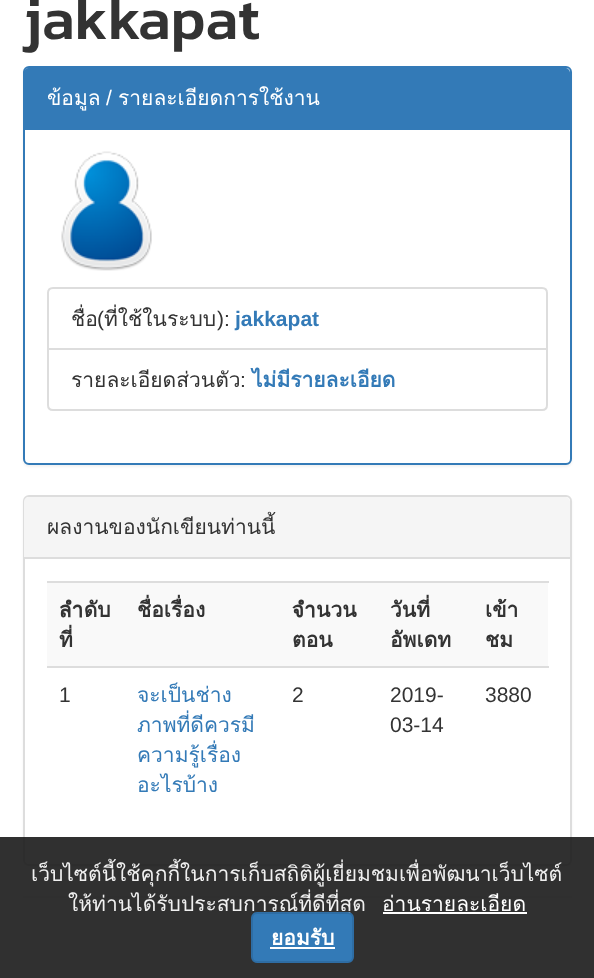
<svg xmlns="http://www.w3.org/2000/svg" width="594" height="978" viewBox="0 0 594 978">
  <defs>
    <filter id="blur1" x="-50%" y="-200%" width="200%" height="500%"><feGaussianBlur stdDeviation="1"/></filter>
  </defs>
  <rect width="100%" height="100%" fill="#ffffff"/>
  <text x="23" y="39" font-family="Kanit" font-size="59" font-weight="500" fill="#333333">jakkapat</text>
  <rect x="23" y="68" width="549" height="399" rx="6" fill="#000000" fill-opacity="0.05" filter="url(#blur1)"/>
  <rect x="24" y="67" width="547" height="397" rx="5" fill="#ffffff" stroke="#337ab7" stroke-width="2"/>
  <path d="M29 68H565C568 68 570 70 570 73V129H24V73C24 70 26 68 29 68Z" fill="#337ab7"/>
  <rect x="24" y="129" width="546" height="1" fill="#337ab7"/>
  <text x="47" y="105" font-family="Loma" font-size="21" fill="#ffffff">ข้อมูล</text>
  <text x="106" y="105" font-family="Liberation Sans" font-size="21" fill="#ffffff">/</text>
  <text x="118" y="105" font-family="Loma" font-size="21" fill="#ffffff">รายละเอียดการใช้งาน</text>
  <image x="61" y="151" width="91" height="120" href="img1.png"/>
  <path d="M53 288H542C545 288 547 290 547 293V349H48V293C48 290 50 288 53 288Z" fill="none" stroke="#dddddd" stroke-width="2"/>
  <text x="71" y="326" font-family="Loma" font-size="21" fill="#333333">ชื่อ</text>
  <text x="97" y="326" font-family="Liberation Sans" font-size="21" fill="#333333">(</text>
  <text x="104" y="326" font-family="Loma" font-size="21" fill="#333333">ที่ใช้ในระบบ</text>
  <text x="217" y="326" font-family="Liberation Sans" font-size="21" fill="#333333">):</text>
  <text x="235" y="326" font-family="Liberation Sans" font-size="21" font-weight="bold" fill="#337ab7">jakkapat</text>
  <path d="M48 349H547V405C547 408 545 410 542 410H53C50 410 48 408 48 405Z" fill="#ffffff" stroke="#dddddd" stroke-width="2"/>
  <text x="71" y="387" font-family="Loma" font-size="21" fill="#333333">รายละเอียดส่วนตัว</text>
  <text x="240" y="387" font-family="Liberation Sans" font-size="21" fill="#333333">:</text>
  <text x="252" y="387" font-family="Loma" font-size="21" font-weight="bold" fill="#337ab7">ไม่มีรายละเอียด</text>
  <rect x="23" y="497" width="549" height="370" rx="6" fill="#000000" fill-opacity="0.05" filter="url(#blur1)"/>
  <rect x="24" y="496" width="547" height="369" rx="5" fill="#ffffff" stroke="#dddddd" stroke-width="2"/>
  <path d="M29 497H565C568 497 570 499 570 502V558H24V502C24 499 26 497 29 497Z" fill="#f5f5f5"/>
  <rect x="24" y="557" width="546" height="2" fill="#dddddd"/>
  <text x="47" y="534" font-family="Loma" font-size="21" fill="#333333">ผลงานของนักเขียนท่านนี้</text>
  <rect x="47" y="583" width="501" height="83" fill="#f9f9f9"/>
  <text x="59" y="617" font-family="Loma" font-size="21" font-weight="bold" fill="#333333">ลำดับ</text>
  <text x="59" y="647" font-family="Loma" font-size="21" font-weight="bold" fill="#333333">ที่</text>
  <text x="137" y="617" font-family="Loma" font-size="21" font-weight="bold" fill="#333333">ชื่อเรื่อง</text>
  <text x="292" y="617" font-family="Loma" font-size="21" font-weight="bold" fill="#333333">จำนวน</text>
  <text x="292" y="647" font-family="Loma" font-size="21" font-weight="bold" fill="#333333">ตอน</text>
  <text x="390" y="617" font-family="Loma" font-size="21" font-weight="bold" fill="#333333">วันที่</text>
  <text x="390" y="647" font-family="Loma" font-size="21" font-weight="bold" fill="#333333">อัพเดท</text>
  <rect x="47" y="581" width="502" height="2" fill="#dddddd"/>
  <text x="485" y="617" font-family="Loma" font-size="21" font-weight="bold" fill="#333333">เข้า</text>
  <text x="485" y="647" font-family="Loma" font-size="21" font-weight="bold" fill="#333333">ชม</text>
  <text x="59" y="702" font-family="Liberation Sans" font-size="21" fill="#333333">1</text>
  <text x="137" y="702" font-family="Loma" font-size="21" fill="#337ab7">จะเป็นช่าง</text>
  <text x="137" y="732" font-family="Loma" font-size="21" fill="#337ab7">ภาพที่ดีควรมี</text>
  <text x="137" y="762" font-family="Loma" font-size="21" fill="#337ab7">ความรู้เรื่อง</text>
  <text x="137" y="792" font-family="Loma" font-size="21" fill="#337ab7">อะไรบ้าง</text>
  <text x="292" y="702" font-family="Liberation Sans" font-size="21" fill="#333333">2</text>
  <text x="390" y="702" font-family="Liberation Sans" font-size="21" fill="#333333">2019-</text>
  <text x="390" y="732" font-family="Liberation Sans" font-size="21" fill="#333333">03-14</text>
  <rect x="47" y="666" width="502" height="2" fill="#dddddd"/>
  <text x="485" y="702" font-family="Liberation Sans" font-size="21" fill="#333333">3880</text>
  <rect x="23" y="896" width="549" height="2" fill="#eeeeee"/>
  <rect x="0" y="837" width="594" height="141" fill="#191919" fill-opacity="0.9"/>
  <text x="31" y="881" font-family="Loma" font-size="21" fill="#f0f0f0">เว็บไซต์นี้ใช้คุกกี้ในการเก็บสถิติผู้เยี่ยมชมเพื่อพัฒนาเว็บไซต์</text>
  <text x="68" y="911" font-family="Loma" font-size="21" fill="#f0f0f0">ให้ท่านได้รับประสบการณ์ที่ดีที่สุด</text>
  <text x="382" y="911" font-family="Loma" font-size="21" fill="#ffffff">อ่านรายละเอียด</text>
  <rect x="383" y="912" width="144" height="2" fill="#ffffff"/>
  <rect x="252" y="913" width="101" height="49" rx="5" fill="#337ab7" stroke="#2e6da4" stroke-width="2"/>
  <text x="271" y="945" font-family="Loma" font-size="21" font-weight="bold" fill="#ffffff">ยอมรับ</text>
  <rect x="270" y="947" width="65" height="2" fill="#ffffff"/>
</svg>
